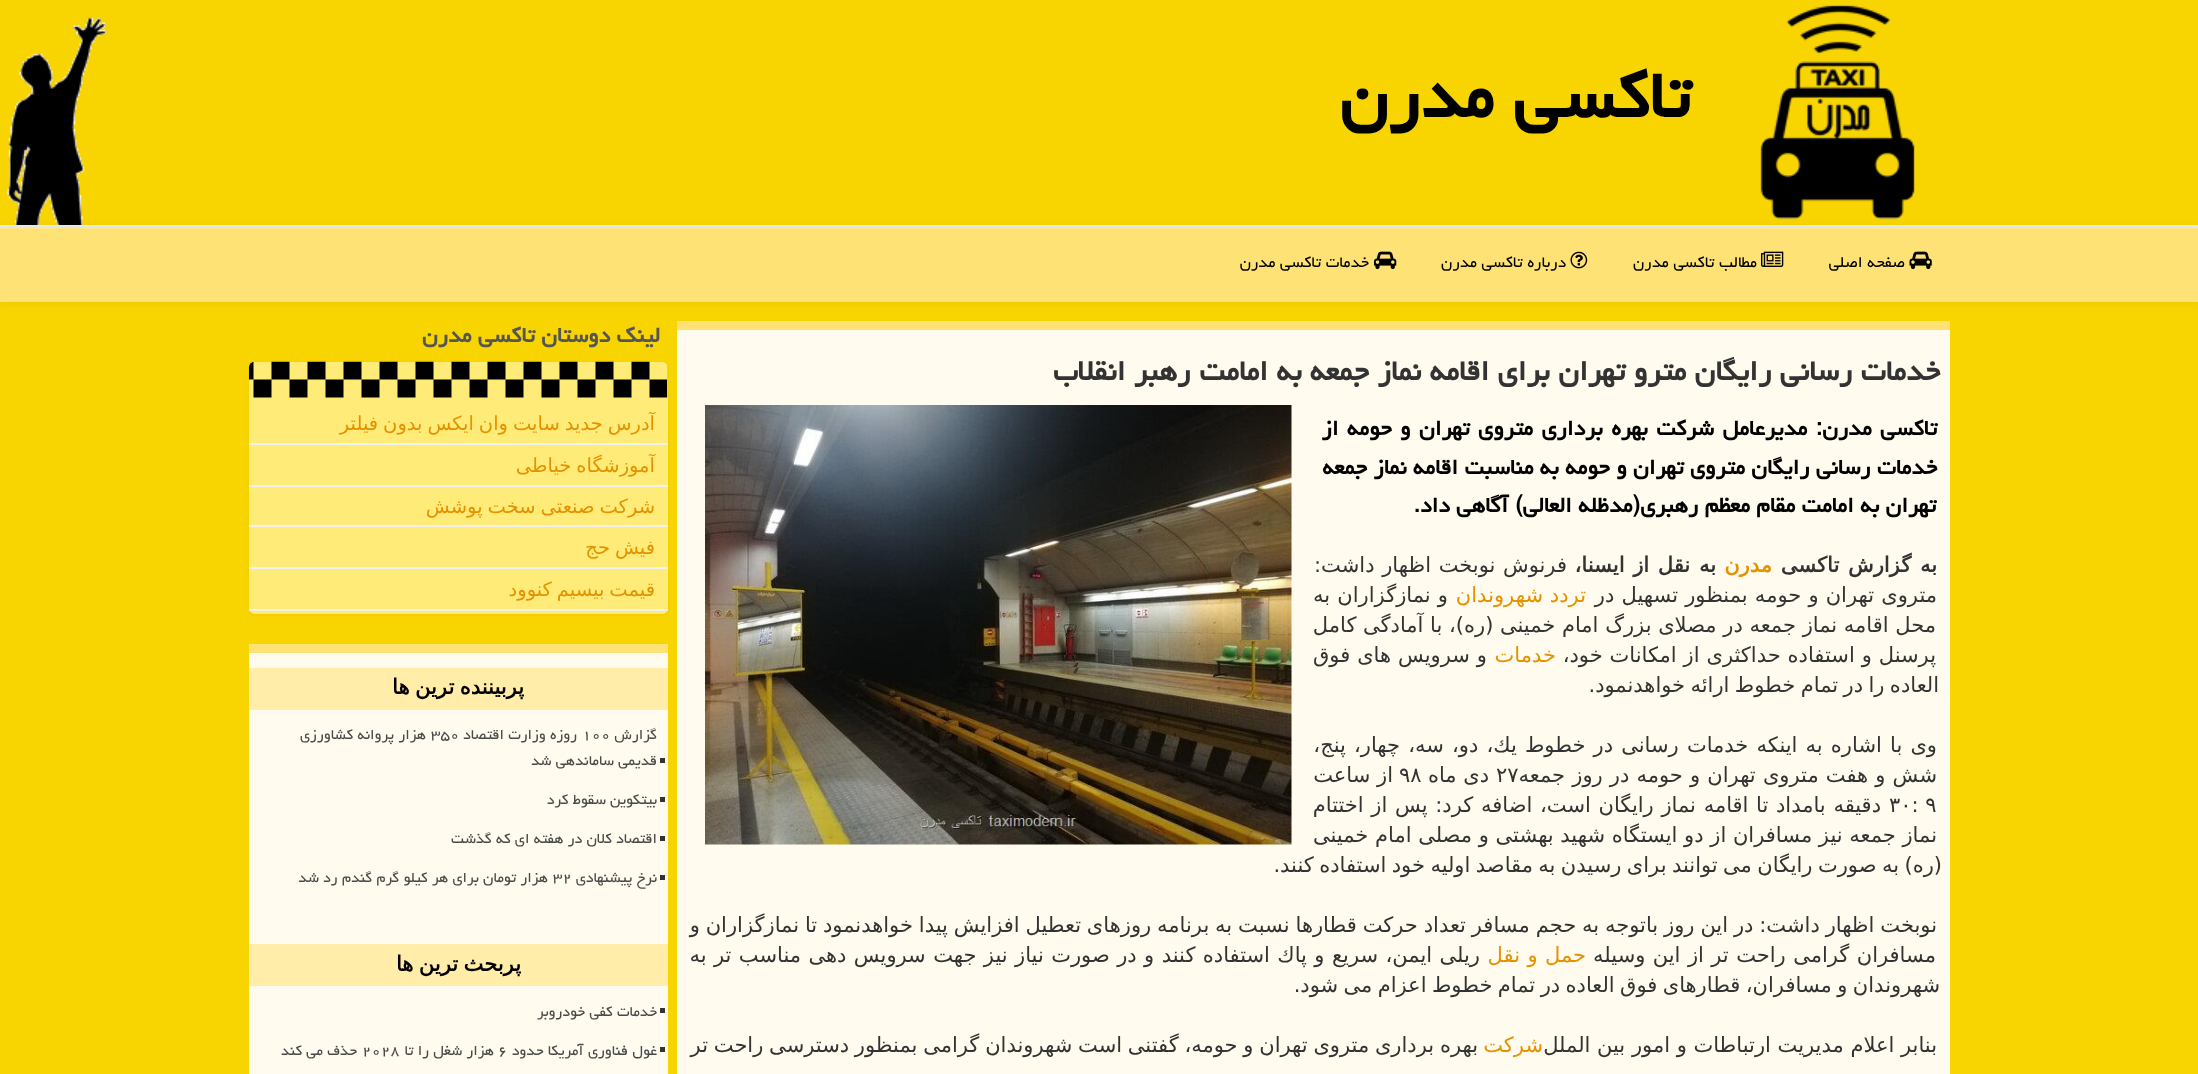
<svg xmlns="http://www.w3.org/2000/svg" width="2198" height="1074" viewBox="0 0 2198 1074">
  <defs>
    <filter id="blur1" x="-50%" y="-200%" width="200%" height="500%"><feGaussianBlur stdDeviation="4"/></filter>
    <filter id="blur2" x="-50%" y="-200%" width="200%" height="500%"><feGaussianBlur stdDeviation="1.5"/></filter>
  </defs>
  <rect width="100%" height="100%" fill="#f8d501"/>
  <image x="7" y="17" width="98" height="208" href="img1.png"/>
  <rect x="0" y="225" width="2198" height="2" fill="#eeeeee"/>
  <image x="1760" y="4" width="156" height="216" href="img2.png"/>
  <text x="1690" y="117" font-family="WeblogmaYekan" font-size="84" font-weight="bold" direction="rtl" fill="#000000">تاكسی مدرن</text>
  <rect x="0" y="228" width="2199" height="75" fill="#000000" fill-opacity="0.07" filter="url(#blur1)"/>
  <rect x="0" y="229" width="2198" height="73" fill="#ffe275"/>
  <rect x="0" y="227" width="2198" height="2" fill="#ffe68a"/>
  <image x="1909" y="251" width="23" height="19" href="img3.png"/>
  <text x="1905" y="267" font-family="WeblogmaYekan" font-size="19.5" direction="rtl" fill="#000000">صفحه اصلی</text>
  <image x="1761" y="251" width="23" height="16" href="img4.png"/>
  <text x="1757" y="267" font-family="WeblogmaYekan" font-size="19.5" direction="rtl" fill="#000000">مطالب تاكسی مدرن</text>
  <image x="1570" y="251" width="18" height="18" href="img5.png"/>
  <text x="1566" y="267" font-family="WeblogmaYekan" font-size="19.5" direction="rtl" fill="#000000">درباره تاكسی مدرن</text>
  <image x="1374" y="251" width="23" height="19" href="img6.png"/>
  <text x="1369" y="267" font-family="WeblogmaYekan" font-size="19.5" direction="rtl" fill="#000000">خدمات تاكسی مدرن</text>
  <rect x="677" y="330" width="1273" height="744" fill="#fffbee"/>
  <rect x="677" y="321" width="1273" height="9" fill="#ffe275"/>
  <text x="1940" y="380" font-family="WeblogmaYekan" font-size="35.7" font-weight="bold" direction="rtl" fill="#333333">خدمات رسانی رایگان مترو تهران برای اقامه نماز جمعه به امامت رهبر انقلاب</text>
  <text x="1937" y="435" word-spacing="2.1" font-family="WeblogmaYekan" font-size="27" font-weight="bold" direction="rtl" fill="#000000">تاكسی مدرن: مدیرعامل شركت بهره برداری متروی تهران و حومه از</text>
  <text x="1937" y="474" font-family="WeblogmaYekan" font-size="27" font-weight="bold" direction="rtl" fill="#000000">خدمات رسانی رایگان متروی تهران و حومه به مناسبت اقامه نماز جمعه</text>
  <text x="1936" y="512" font-family="WeblogmaYekan" font-size="27" font-weight="bold" direction="rtl" fill="#000000">تهران به امامت مقام معظم رهبری(مدظله العالی) آگاهی داد.</text>
  <image x="705" y="405" width="587" height="440" href="img7.png"/>
  <text x="1937" y="572" word-spacing="2" font-family="DejaVu Sans" font-size="21" font-weight="bold" direction="rtl" fill="#333333">به گزارش تاكسی</text>
  <text x="1772" y="572" font-family="DejaVu Sans" font-size="21" font-weight="bold" direction="rtl" fill="#e49200">مدرن</text>
  <text x="1716" y="572" word-spacing="2" font-family="DejaVu Sans" font-size="21" font-weight="bold" direction="rtl" fill="#333333">به نقل از ایسنا،</text>
  <text x="1567" y="572" word-spacing="1" font-family="DejaVu Sans" font-size="21" direction="rtl" fill="#333333">فرنوش نوبخت اظهار داشت:</text>
  <text x="1937" y="602" word-spacing="0.5" font-family="DejaVu Sans" font-size="21" direction="rtl" fill="#333333">متروی تهران و حومه بمنظور تسهیل در</text>
  <text x="1586" y="602" font-family="DejaVu Sans" font-size="21" direction="rtl" fill="#e49200">تردد</text>
  <text x="1543" y="602" font-family="DejaVu Sans" font-size="21" direction="rtl" fill="#e49200">شهروندان</text>
  <text x="1448" y="602" word-spacing="0.5" font-family="DejaVu Sans" font-size="21" direction="rtl" fill="#333333">و نمازگزاران به</text>
  <text x="1936" y="632" font-family="DejaVu Sans" font-size="21" direction="rtl" fill="#333333">محل اقامه نماز جمعه در مصلای بزرگ امام خمینی (ره)، با آمادگی كامل</text>
  <text x="1936" y="662" word-spacing="0.25" font-family="DejaVu Sans" font-size="21" direction="rtl" fill="#333333">پرسنل و استفاده حداكثری از امكانات خود،</text>
  <text x="1556" y="662" font-family="DejaVu Sans" font-size="21" direction="rtl" fill="#e49200">خدمات</text>
  <text x="1487" y="662" word-spacing="0.25" font-family="DejaVu Sans" font-size="21" direction="rtl" fill="#333333">و سرویس های فوق</text>
  <text x="1939" y="692" word-spacing="-1.25" font-family="DejaVu Sans" font-size="21" direction="rtl" fill="#333333">العاده را در تمام خطوط ارائه خواهدنمود.</text>
  <text x="1937" y="752" word-spacing="1.5" font-family="DejaVu Sans" font-size="21" direction="rtl" fill="#333333">وی با اشاره به اینكه خدمات رسانی در خطوط یك، دو، سه، چهار، پنج،</text>
  <text x="1937" y="782" word-spacing="0.5" font-family="DejaVu Sans" font-size="21" direction="rtl" fill="#333333">شش و هفت متروی تهران و حومه در روز جمعه</text>
  <text x="1496" y="782" font-family="DejaVu Sans" font-size="21" fill="#333333">۲۷</text>
  <text x="1489" y="782" font-family="DejaVu Sans" font-size="21" direction="rtl" fill="#333333">دی ماه</text>
  <text x="1399" y="782" font-family="DejaVu Sans" font-size="21" fill="#333333">۹۸</text>
  <text x="1393" y="782" font-family="DejaVu Sans" font-size="21" direction="rtl" fill="#333333">از ساعت</text>
  <text x="1889" y="812" font-family="DejaVu Sans" font-size="21" fill="#333333">۳۰: ۹</text>
  <text x="1881" y="812" word-spacing="1" font-family="DejaVu Sans" font-size="21" direction="rtl" fill="#333333">دقیقه بامداد تا اقامه نماز رایگان است، اضافه كرد: پس از اختتام</text>
  <text x="1937" y="842" font-family="DejaVu Sans" font-size="21" direction="rtl" fill="#333333">نماز جمعه نیز مسافران از دو ایستگاه شهید بهشتی و مصلی امام خمینی</text>
  <text x="1942" y="872" word-spacing="-1.25" font-family="DejaVu Sans" font-size="21" direction="rtl" fill="#333333">(ره) به صورت رایگان می توانند برای رسیدن به مقاصد اولیه خود استفاده كنند.</text>
  <text x="1937" y="932" word-spacing="-0.8" font-family="DejaVu Sans" font-size="21" direction="rtl" fill="#333333">نوبخت اظهار داشت: در این روز باتوجه به حجم مسافر تعداد حركت قطارها نسبت به برنامه روزهای تعطیل افزایش پیدا خواهدنمود تا نمازگزاران و</text>
  <text x="1936" y="962" word-spacing="0.75" font-family="DejaVu Sans" font-size="21" direction="rtl" fill="#333333">مسافران گرامی راحت تر از این وسیله</text>
  <text x="1586" y="962" word-spacing="0.75" font-family="DejaVu Sans" font-size="21" direction="rtl" fill="#e49200">حمل و نقل</text>
  <text x="1480" y="962" word-spacing="0.75" font-family="DejaVu Sans" font-size="21" direction="rtl" fill="#333333">ریلی ایمن، سریع و پاك استفاده كنند و در صورت نیاز نیز جهت سرویس دهی مناسب تر به</text>
  <text x="1940" y="992" word-spacing="-1.25" font-family="DejaVu Sans" font-size="21" direction="rtl" fill="#333333">شهروندان و مسافران، قطارهای فوق العاده در تمام خطوط اعزام می شود.</text>
  <text x="1937" y="1052" font-family="DejaVu Sans" font-size="21" direction="rtl" fill="#333333">بنابر اعلام مدیریت ارتباطات و امور بین الملل</text>
  <text x="1543" y="1052" font-family="DejaVu Sans" font-size="21" direction="rtl" fill="#e49200">شركت</text>
  <text x="1478" y="1052" word-spacing="-0.9" font-family="DejaVu Sans" font-size="21" direction="rtl" fill="#333333">بهره برداری متروی تهران و حومه، گفتنی است شهروندان گرامی بمنظور دسترسی راحت تر</text>
  <text x="660" y="342" font-family="WeblogmaYekan" font-size="27" font-weight="bold" direction="rtl" fill="#555555">لینک دوستان تاكسی مدرن</text>
  <rect x="249" y="363" width="419" height="252" rx="6" fill="#000000" fill-opacity="0.05" filter="url(#blur2)"/>
  <rect x="249" y="362" width="419" height="252" rx="6" fill="#ffec78"/>
  <image x="249" y="361" width="419" height="37" href="img8.png"/>
  <rect x="249" y="443" width="419" height="2" fill="#f1f1f1"/>
  <text x="655" y="430" word-spacing="-1.25" font-family="DejaVu Sans" font-size="19.5" direction="rtl" fill="#e49200">آدرس جدید سایت وان ایکس بدون فیلتر</text>
  <rect x="249" y="485" width="419" height="2" fill="#f1f1f1"/>
  <text x="655" y="472" word-spacing="-1.25" font-family="DejaVu Sans" font-size="19.5" direction="rtl" fill="#e49200">آموزشگاه خیاطی</text>
  <rect x="249" y="525" width="419" height="2" fill="#f1f1f1"/>
  <text x="655" y="513" word-spacing="-1.25" font-family="DejaVu Sans" font-size="19.5" direction="rtl" fill="#e49200">شرکت صنعتی سخت پوشش</text>
  <rect x="249" y="567" width="419" height="2" fill="#f1f1f1"/>
  <text x="655" y="554" word-spacing="-1.25" font-family="DejaVu Sans" font-size="19.5" direction="rtl" fill="#e49200">فیش حج</text>
  <rect x="249" y="609" width="419" height="2" fill="#f1f1f1"/>
  <text x="655" y="596" word-spacing="-1.25" font-family="DejaVu Sans" font-size="19.5" direction="rtl" fill="#e49200">قیمت بیسیم کنوود</text>
  <rect x="249" y="653" width="419" height="421" fill="#fffbee"/>
  <rect x="249" y="644" width="419" height="9" fill="#ffe275"/>
  <rect x="249" y="668" width="419" height="42" fill="#ffeda9"/>
  <text x="524" y="694" word-spacing="-1.25" font-family="DejaVu Sans" font-size="21" font-weight="bold" direction="rtl" fill="#000000">پربیننده ترین ها</text>
  <rect x="660" y="758" width="5" height="5" fill="#333333"/>
  <text x="657" y="739" font-family="WeblogmaYekan" font-size="18" direction="rtl" fill="#4a4a4a">گزارش</text>
  <text x="582" y="739" font-family="WeblogmaYekan" font-size="18" fill="#4a4a4a">۱۰۰</text>
  <text x="577" y="739" font-family="WeblogmaYekan" font-size="18" direction="rtl" fill="#4a4a4a">روزه وزارت اقتصاد</text>
  <text x="431" y="739" font-family="WeblogmaYekan" font-size="18" fill="#4a4a4a">۳۵۰</text>
  <text x="426" y="739" font-family="WeblogmaYekan" font-size="18" direction="rtl" fill="#4a4a4a">هزار پروانه کشاورزی</text>
  <text x="657" y="765" font-family="WeblogmaYekan" font-size="18" direction="rtl" fill="#4a4a4a">قدیمی ساماندهی شد</text>
  <rect x="660" y="797" width="5" height="5" fill="#333333"/>
  <text x="657" y="804" font-family="WeblogmaYekan" font-size="18" direction="rtl" fill="#4a4a4a">بیتکوین سقوط کرد</text>
  <rect x="660" y="836" width="5" height="5" fill="#333333"/>
  <text x="657" y="843" font-family="WeblogmaYekan" font-size="18" direction="rtl" fill="#4a4a4a">اقتصاد کلان در هفته ای که گذشت</text>
  <rect x="660" y="875" width="5" height="5" fill="#333333"/>
  <text x="657" y="882" font-family="WeblogmaYekan" font-size="18" direction="rtl" fill="#4a4a4a">نرخ پیشنهادی</text>
  <text x="553" y="882" font-family="WeblogmaYekan" font-size="18" fill="#4a4a4a">۳۲</text>
  <text x="548" y="882" font-family="WeblogmaYekan" font-size="18" direction="rtl" fill="#4a4a4a">هزار تومان برای هر کیلو گرم گندم رد شد</text>
  <rect x="249" y="944" width="419" height="42" fill="#ffeda9"/>
  <text x="521" y="971" word-spacing="-1.25" font-family="DejaVu Sans" font-size="21" font-weight="bold" direction="rtl" fill="#000000">پربحث ترین ها</text>
  <rect x="660" y="1008" width="5" height="5" fill="#333333"/>
  <text x="657" y="1016" font-family="WeblogmaYekan" font-size="18" direction="rtl" fill="#4a4a4a">خدمات کفی خودروبر</text>
  <rect x="660" y="1047" width="5" height="5" fill="#333333"/>
  <text x="657" y="1055" font-family="WeblogmaYekan" font-size="18" direction="rtl" fill="#4a4a4a">غول فناوری آمریکا حدود</text>
  <text x="498" y="1055" font-family="WeblogmaYekan" font-size="18" fill="#4a4a4a">۶</text>
  <text x="494" y="1055" font-family="WeblogmaYekan" font-size="18" direction="rtl" fill="#4a4a4a">هزار شغل را تا</text>
  <text x="362" y="1055" font-family="WeblogmaYekan" font-size="18" fill="#4a4a4a">۲۰۲۸</text>
  <text x="357" y="1055" font-family="WeblogmaYekan" font-size="18" direction="rtl" fill="#4a4a4a">حذف می کند</text>
</svg>
